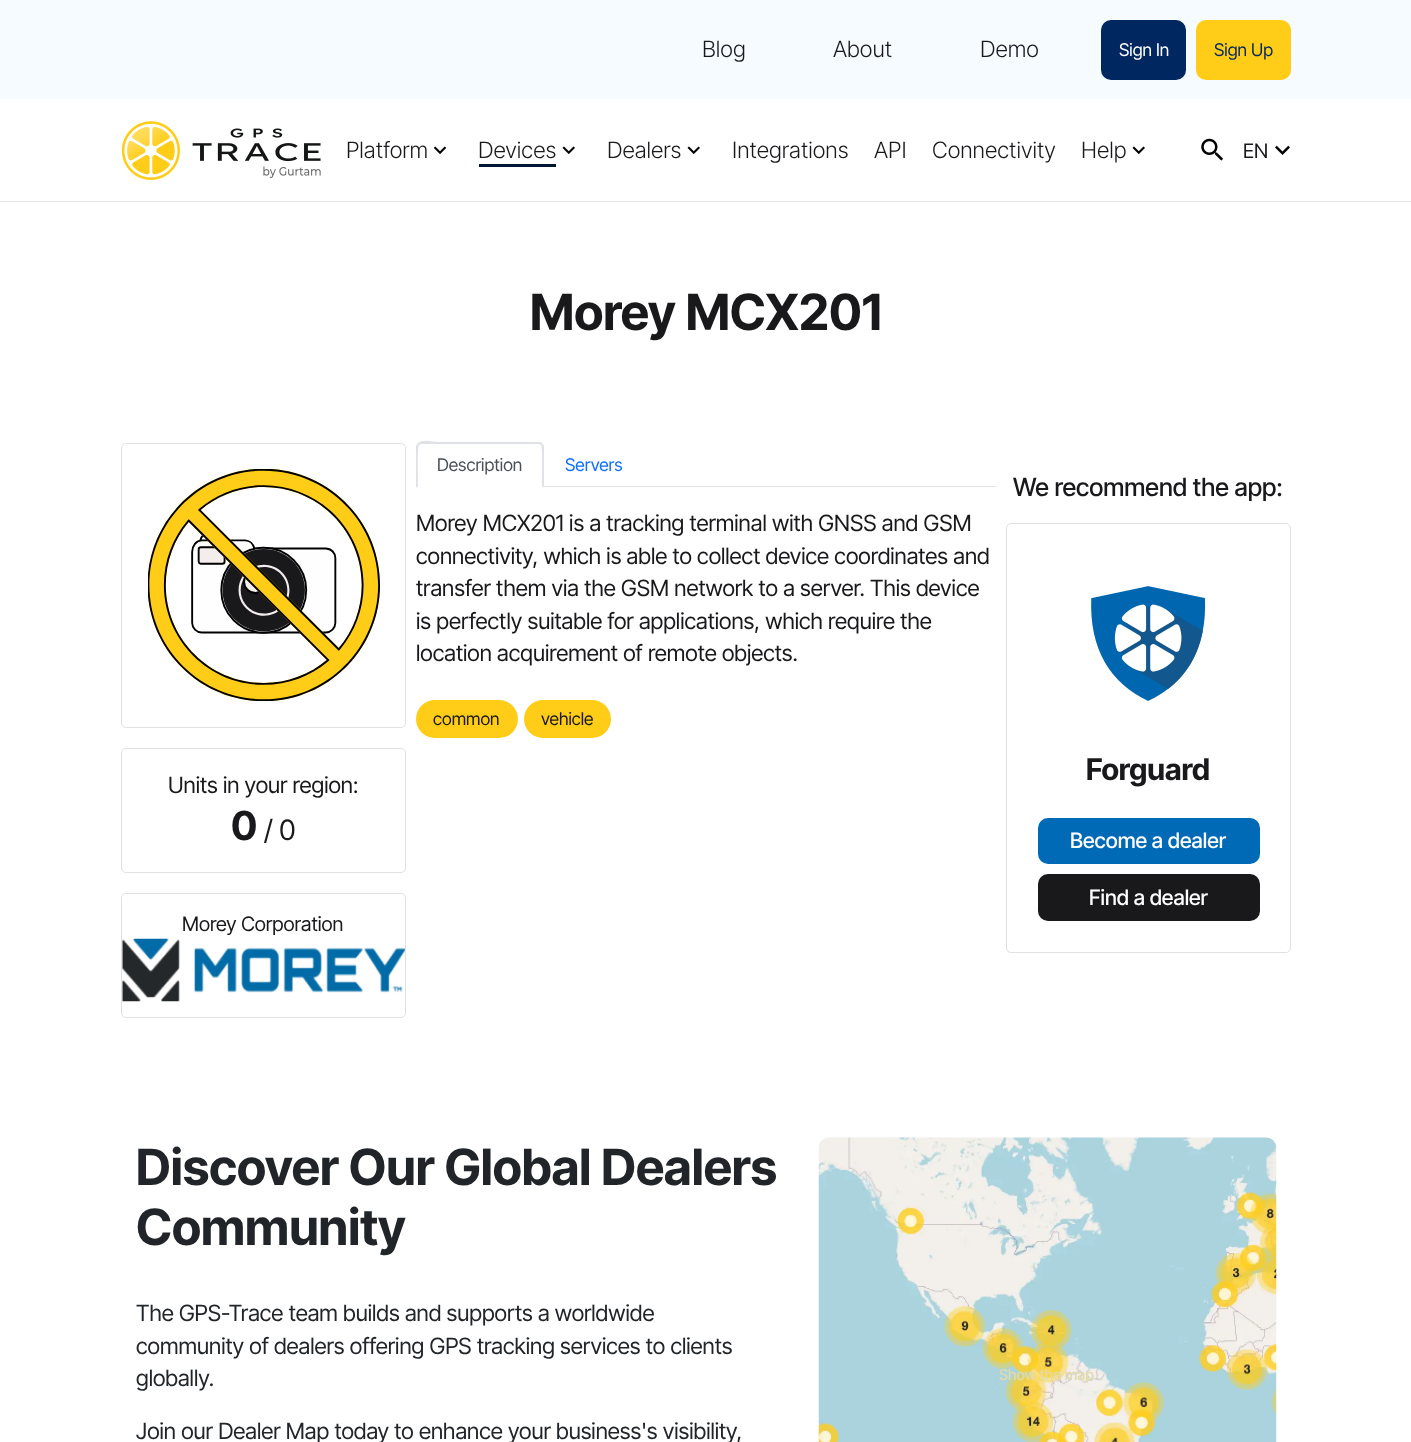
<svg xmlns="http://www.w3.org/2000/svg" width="1411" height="1442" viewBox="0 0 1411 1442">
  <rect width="100%" height="100%" fill="#ffffff"/>
  <rect x="0" y="0" width="1411" height="99" fill="#f5fbff"/>
  <text x="702" y="57" font-family="Inter Tight" font-size="22.5" font-weight="300" fill="#19191c">Blog</text>
  <text x="833" y="57" font-family="Inter Tight" font-size="22.5" font-weight="300" fill="#19191c">About</text>
  <text x="980" y="57" font-family="Inter Tight" font-size="22.5" font-weight="300" fill="#19191c">Demo</text>
  <rect x="1101" y="20" width="85" height="60" rx="10" fill="#00275f"/>
  <text x="1119" y="56" font-family="Inter Tight" font-size="17.5" fill="#ffffff">Sign In</text>
  <rect x="1196" y="20" width="95" height="60" rx="10" fill="#ffcc17"/>
  <text x="1214" y="56" font-family="Inter Tight" font-size="17.5" fill="#00275f">Sign Up</text>
  <rect x="0" y="201" width="1411" height="1" fill="#e6e6e6"/>
  <image x="122" y="121" width="199" height="59" href="img1.png"/>
  <text x="346" y="158" font-family="Inter Tight" font-size="22.5" font-weight="300" fill="#19191c">Platform</text>
  <image x="433" y="146" width="14" height="8" href="img2.png"/>
  <text x="478" y="158" font-family="Inter Tight" font-size="22.5" font-weight="300" fill="#19191c">Devices</text>
  <image x="562" y="146" width="13" height="9" href="img3.png"/>
  <rect x="479" y="164" width="77" height="3" fill="#011634"/>
  <text x="607" y="158" font-family="Inter Tight" font-size="22.5" font-weight="300" fill="#19191c">Dealers</text>
  <image x="687" y="146" width="13" height="9" href="img3.png"/>
  <text x="732" y="158" font-family="Inter Tight" font-size="22.5" font-weight="300" fill="#19191c">Integrations</text>
  <text x="874" y="158" font-family="Inter Tight" font-size="22.5" font-weight="300" fill="#19191c">API</text>
  <text x="932" y="158" font-family="Inter Tight" font-size="22.5" font-weight="300" fill="#19191c">Connectivity</text>
  <text x="1081" y="158" font-family="Inter Tight" font-size="22.5" font-weight="300" fill="#19191c">Help</text>
  <image x="1132" y="146" width="13" height="9" href="img3.png"/>
  <image x="1201" y="138" width="22" height="23" href="img4.png"/>
  <text x="1243" y="158" font-family="Inter Tight" font-size="20" fill="#19191c">EN</text>
  <image x="1275" y="145" width="15" height="10" href="img5.png"/>
  <text x="530" y="330" font-family="Inter Tight" font-size="50" font-weight="bold" fill="#19191c">Morey MCX201</text>
  <rect x="121.5" y="443.5" width="284" height="284" rx="4.5" fill="none" stroke="#e1e1e1"/>
  <image x="148" y="469" width="232" height="232" href="img6.png"/>
  <rect x="121.5" y="748.5" width="284" height="124" rx="4.5" fill="none" stroke="#e1e1e1"/>
  <text x="168" y="793" font-family="Inter Tight" font-size="22.5" fill="#19191c">Units in your region:</text>
  <text x="231" y="840" font-family="Inter Tight" font-size="40" font-weight="bold" fill="#19191c">0</text>
  <text x="264" y="840" font-family="Inter Tight" font-size="28" fill="#19191c">/ 0</text>
  <rect x="121.5" y="893.5" width="284" height="124" rx="4.5" fill="none" stroke="#e1e1e1"/>
  <text x="182" y="931" font-family="Inter Tight" font-size="20" fill="#19191c">Morey Corporation</text>
  <image x="122" y="938" width="283" height="64" href="img7.png"/>
  <rect x="544" y="486" width="452" height="1" fill="#dee2e6"/>
  <path d="M421 444L419 445L417 444C422 438 432 442 439 442H541L543 444L541 445L539 444Z" fill="#dee2e6"/>
  <path d="M543 444L544 446V488L542 486C542 480 543 447 541 445Z" fill="#dee2e6"/>
  <path d="M544 488L542 486H418L416 488Z" fill="#ffffff"/>
  <path d="M416 488V446L417 444L419 445C417 447 418 480 418 486Z" fill="#dee2e6"/>
  <text x="437" y="471" font-family="Inter Tight" font-size="17.5" fill="#495057">Description</text>
  <text x="565" y="471" font-family="Inter Tight" font-size="17.5" fill="#0d6efd">Servers</text>
  <text x="416" y="531" font-family="Inter Tight" font-size="22.5" fill="#19191c">Morey MCX201 is a tracking terminal with GNSS and GSM</text>
  <text x="416" y="564" font-family="Inter Tight" font-size="22.5" fill="#19191c">connectivity, which is able to collect device coordinates and</text>
  <text x="416" y="596" font-family="Inter Tight" font-size="22.5" fill="#19191c">transfer them via the GSM network to a server. This device</text>
  <text x="416" y="629" font-family="Inter Tight" font-size="22.5" fill="#19191c">is perfectly suitable for applications, which require the</text>
  <text x="416" y="661" font-family="Inter Tight" font-size="22.5" fill="#19191c">location acquirement of remote objects.</text>
  <rect x="416" y="700" width="102" height="38" rx="19" fill="#ffcc17"/>
  <text x="433" y="725" font-family="Inter Tight" font-size="17.5" fill="#19191c">common</text>
  <rect x="524" y="700" width="87" height="38" rx="19" fill="#ffcc17"/>
  <text x="541" y="725" font-family="Inter Tight" font-size="17.5" fill="#19191c">vehicle</text>
  <text x="1013" y="496" font-family="Inter Tight" font-size="25" font-weight="500" fill="#19191c">We recommend the app:</text>
  <rect x="1006.5" y="523.5" width="284" height="429" rx="4.5" fill="none" stroke="#e1e1e1"/>
  <image x="1091" y="586" width="115" height="115" href="img8.png"/>
  <text x="1086" y="780" font-family="Inter Tight" font-size="30" font-weight="bold" fill="#19191c">Forguard</text>
  <rect x="1038" y="818" width="222" height="46" rx="10" fill="#006ab7"/>
  <text x="1070" y="848" font-family="Inter Tight" font-size="21.25" font-weight="500" fill="#ffffff">Become a dealer</text>
  <rect x="1038" y="874" width="222" height="47" rx="10" fill="#19191c"/>
  <text x="1089" y="905" font-family="Inter Tight" font-size="21.25" font-weight="500" fill="#ffffff">Find a dealer</text>
  <text x="136" y="1185" font-family="Inter Tight" font-size="50" font-weight="bold" fill="#212529">Discover Our Global Dealers</text>
  <text x="136" y="1245" font-family="Inter Tight" font-size="50" font-weight="bold" fill="#212529">Community</text>
  <text x="136" y="1321" font-family="Inter Tight" font-size="22.5" fill="#212529">The GPS-Trace team builds and supports a worldwide</text>
  <text x="136" y="1354" font-family="Inter Tight" font-size="22.5" fill="#212529">community of dealers offering GPS tracking services to clients</text>
  <text x="136" y="1386" font-family="Inter Tight" font-size="22.5" fill="#212529">globally.</text>
  <text x="136" y="1439" font-family="Inter Tight" font-size="22.5" fill="#212529">Join our Dealer Map today to enhance your business's visibility,</text>
  <image x="818" y="1137" width="459" height="305" href="img9.png"/>
  <text x="999" y="1380" font-family="Inter Tight" font-size="15" font-weight="500" fill="#e1dbaa">Show the map</text>
</svg>
